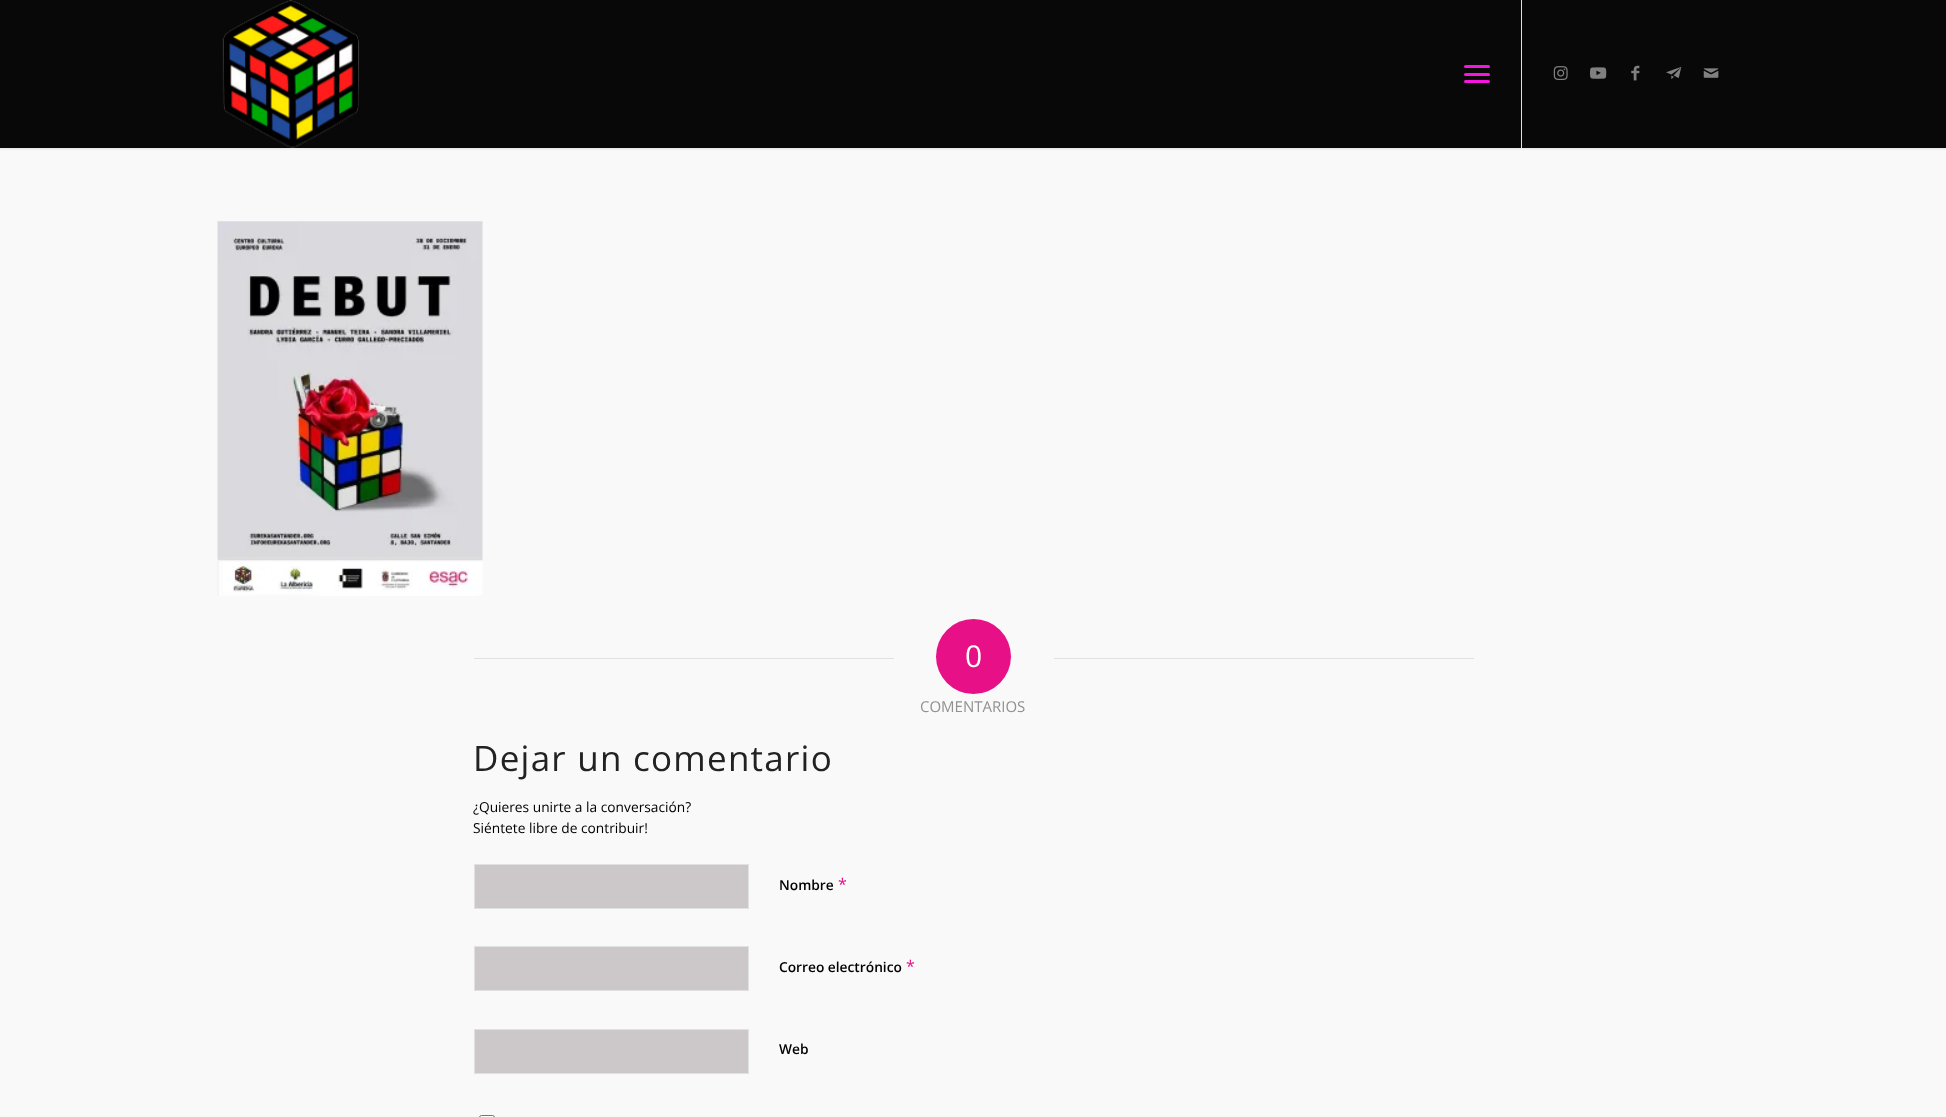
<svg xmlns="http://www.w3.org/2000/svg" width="1946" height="1117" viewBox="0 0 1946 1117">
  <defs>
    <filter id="blur1" x="-50%" y="-200%" width="200%" height="500%"><feGaussianBlur stdDeviation="1"/></filter>
  </defs>
  <rect width="100%" height="100%" fill="#f9f9f9"/>
  <rect x="-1" y="-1" width="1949" height="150" fill="#000000" fill-opacity="0.1" filter="url(#blur1)"/>
  <rect x="0" y="0" width="1946" height="148" fill="#080808"/>
  <image x="222" y="0" width="138" height="148" href="img1.png"/>
  <rect x="1521" y="0" width="1" height="148" fill="#e1e1e1"/>
  <rect x="1464" y="73" width="26" height="3" rx="1.5" fill="#f516df"/>
  <rect x="1464" y="65" width="26" height="3" rx="1.5" fill="#f516df"/>
  <rect x="1464" y="80" width="26" height="3" rx="1.5" fill="#f516df"/>
  <image x="1553" y="66" width="15" height="14" href="img2.png"/>
  <image x="1590" y="67" width="17" height="12" href="img3.png"/>
  <image x="1631" y="65" width="9" height="16" href="img4.png"/>
  <image x="1666" y="67" width="16" height="12" href="img5.png"/>
  <image x="1703" y="68" width="16" height="10" href="img6.png"/>
  <image x="217" y="221" width="266" height="375" href="img7.png"/>
  <rect x="474" y="658" width="420" height="1" fill="#e1e1e1"/>
  <circle cx="973.5" cy="656.5" r="37.5" fill="#e81087"/>
  <text x="965" y="667" font-family="Open Sans" font-size="30" fill="#ffffff">0</text>
  <rect x="1054" y="658" width="420" height="1" fill="#e1e1e1"/>
  <text x="920" y="712" font-family="Open Sans" font-size="15" fill="#919191">COMENTARIOS</text>
  <text x="473" y="771" font-family="Open Sans" font-size="35" letter-spacing="1.25" fill="#222222">Dejar un comentario</text>
  <text x="473" y="812" font-family="Open Sans" font-size="13.75" fill="#000000">¿Quieres unirte a la conversación?</text>
  <text x="473" y="833" font-family="Open Sans" font-size="13.75" fill="#000000">Siéntete libre de contribuir!</text>
  <rect x="474.5" y="864.5" width="274" height="44" fill="#ccc8ca" stroke="#e1e1e1"/>
  <text x="779" y="890" font-family="Open Sans" font-size="13.75" font-weight="600" fill="#000000">Nombre</text>
  <text x="838" y="890" font-family="Open Sans" font-size="16" fill="#e81087">*</text>
  <rect x="474.5" y="946.5" width="274" height="44" fill="#ccc8ca" stroke="#e1e1e1"/>
  <text x="779" y="972" font-family="Open Sans" font-size="13.75" font-weight="600" fill="#000000">Correo electrónico</text>
  <text x="906" y="972" font-family="Open Sans" font-size="16" fill="#e81087">*</text>
  <rect x="474.5" y="1029.5" width="274" height="44" fill="#ccc8ca" stroke="#e1e1e1"/>
  <text x="779" y="1054" font-family="Open Sans" font-size="13.75" font-weight="600" fill="#000000">Web</text>
  <rect x="479.5" y="1115.5" width="15" height="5" rx="2" fill="#ffffff" stroke="#767676"/>
</svg>
